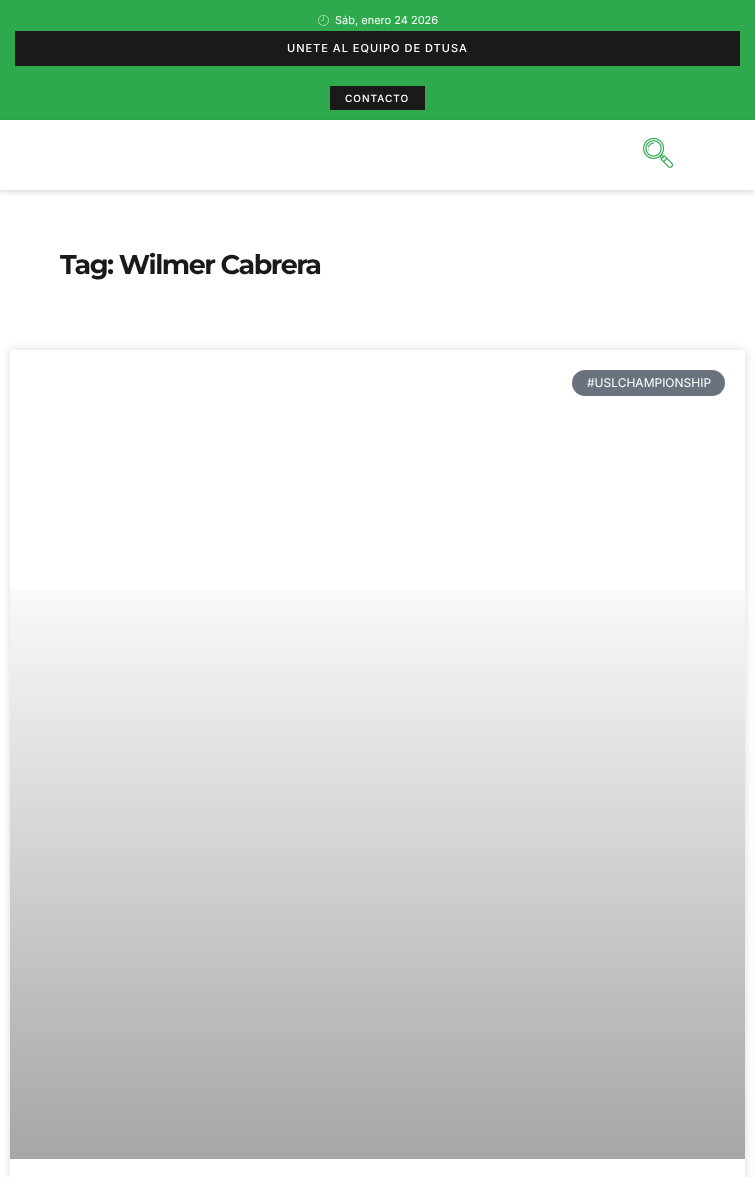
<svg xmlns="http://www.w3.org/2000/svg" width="755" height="1177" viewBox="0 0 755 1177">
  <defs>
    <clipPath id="clip1"><path d="M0 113H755V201H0ZM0 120H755V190H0Z" clip-rule="evenodd"/></clipPath>
    <filter id="blur1" x="-50%" y="-200%" width="200%" height="500%"><feGaussianBlur stdDeviation="2.5"/></filter>
    <filter id="blur2" x="-50%" y="-200%" width="200%" height="500%"><feGaussianBlur stdDeviation="5"/></filter>
    <linearGradient id="g1" gradientUnits="userSpaceOnUse" x1="378" y1="1159" x2="378" y2="350"><stop offset="0" stop-color="#000000" stop-opacity="0.35"/><stop offset="0.75" stop-color="#000000" stop-opacity="0"/></linearGradient>
  </defs>
  <rect width="100%" height="100%" fill="#ffffff"/>
  <rect x="0" y="0" width="755" height="120" fill="#2fa94d"/>
  <image x="318" y="15" width="11" height="11" href="img1.png"/>
  <text x="335" y="24" font-family="Inter" font-size="11" fill="#ffffff">Sáb, enero 24 2026</text>
  <rect x="15" y="31" width="725" height="35" fill="#1a1a1a"/>
  <text x="287" y="52" font-family="Inter" font-size="11" font-weight="500" letter-spacing="1" fill="#ffffff">UNETE AL EQUIPO DE DTUSA</text>
  <rect x="330" y="86" width="95" height="24" fill="#1a1a1a"/>
  <text x="345" y="102" font-family="Inter" font-size="10" font-weight="500" letter-spacing="1" fill="#ffffff">CONTACTO</text>
  <g clip-path="url(#clip1)">
    <rect x="0" y="122" width="755" height="70" fill="#000000" fill-opacity="0.15" filter="url(#blur1)"/>
  </g>
  <image x="643" y="137" width="30" height="31" href="img2.png"/>
  <text x="60" y="274" font-family="Montserrat" font-size="27" font-weight="bold" letter-spacing="-1.5" fill="#1a1a1a">Tag: Wilmer Cabrera</text>
  <rect x="10" y="350" width="735" height="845" rx="3" fill="#000000" fill-opacity="0.15" filter="url(#blur2)"/>
  <rect x="10" y="350" width="735" height="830" rx="3" fill="#ffffff"/>
  <rect x="572" y="370" width="153" height="26" rx="13" fill="#69727d"/>
  <text x="587" y="387" font-family="Inter" font-size="12" fill="#ffffff">#USLCHAMPIONSHIP</text>
  <rect x="10" y="590" width="735" height="569" fill="url(#g1)"/>
</svg>
